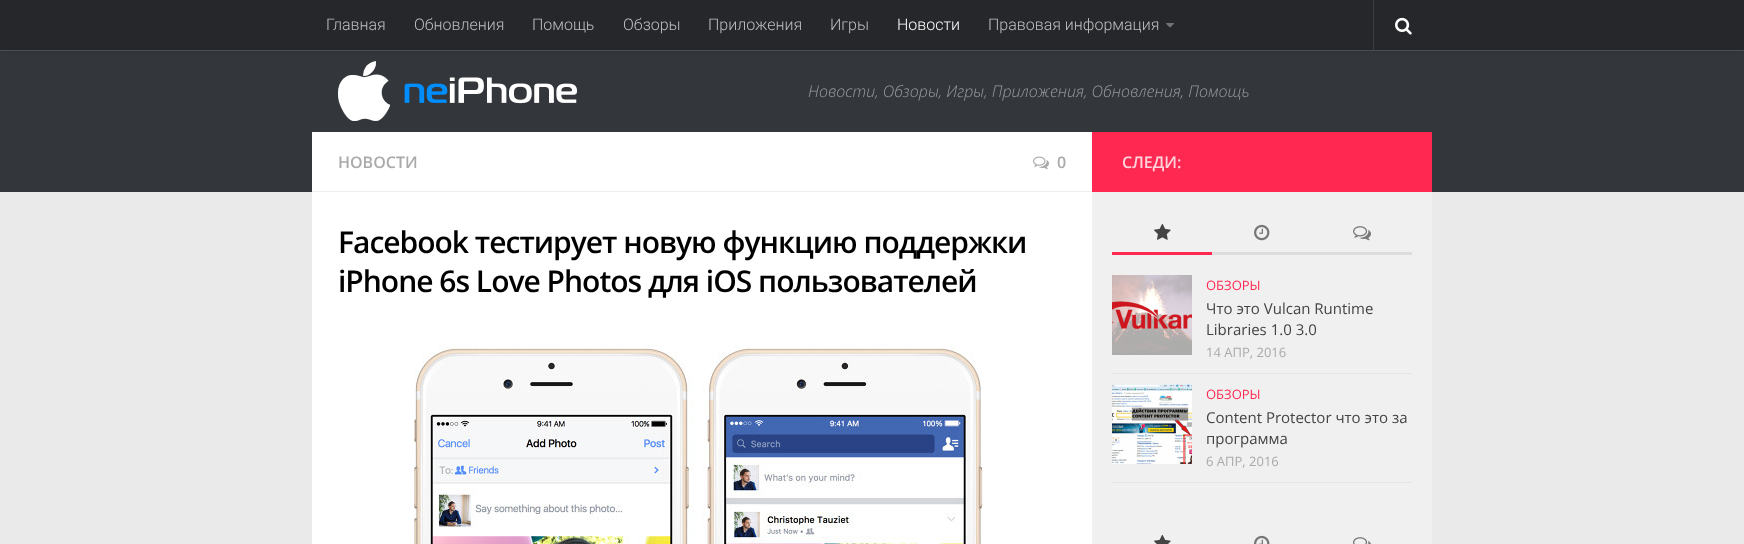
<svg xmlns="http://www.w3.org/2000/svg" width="1744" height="544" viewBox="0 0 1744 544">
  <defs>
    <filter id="blur1" x="-50%" y="-200%" width="200%" height="500%"><feGaussianBlur stdDeviation="2.5"/></filter>
  </defs>
  <rect width="100%" height="100%" fill="#eaeaea"/>
  <rect x="0" y="51" width="1744" height="141" fill="#33363b"/>
  <rect x="0" y="50" width="1744" height="1" fill="#525458"/>
  <rect x="0" y="0" width="1744" height="50" fill="#000000" fill-opacity="0.2" filter="url(#blur1)"/>
  <rect x="0" y="0" width="1744" height="50" fill="#26272b"/>
  <text x="326" y="30" font-family="Roboto" font-size="16" font-weight="300" fill="#bebebf">Главная</text>
  <text x="414" y="30" font-family="Roboto" font-size="16" font-weight="300" fill="#bebebf">Обновления</text>
  <text x="532" y="30" font-family="Roboto" font-size="16" font-weight="300" fill="#bebebf">Помощь</text>
  <text x="623" y="30" font-family="Roboto" font-size="16" font-weight="300" fill="#bebebf">Обзоры</text>
  <text x="708" y="30" font-family="Roboto" font-size="16" font-weight="300" fill="#bebebf">Приложения</text>
  <text x="830" y="30" font-family="Roboto" font-size="16" font-weight="300" fill="#bebebf">Игры</text>
  <text x="897" y="30" font-family="Roboto" font-size="16" font-weight="300" fill="#ffffff">Новости</text>
  <text x="988" y="30" font-family="Roboto" font-size="16" font-weight="300" fill="#bebebf">Правовая информация</text>
  <image x="1166" y="23" width="8" height="5" href="img1.png"/>
  <rect x="1373" y="0" width="1" height="50" fill="#3c3d40"/>
  <image x="1395" y="17" width="17" height="18" href="img2.png"/>
  <image x="338" y="61" width="239" height="60" href="img3.png"/>
  <text x="808" y="97" font-family="Open Sans" font-size="16" font-weight="300" font-style="italic" fill="#999b9d">Новости, Обзоры, Игры, Приложения, Обновления, Помощь</text>
  <rect x="312" y="132" width="780" height="412" fill="#ffffff"/>
  <rect x="1092" y="192" width="340" height="352" fill="#f0f0f0"/>
  <rect x="312" y="191" width="780" height="1" fill="#eeeeee"/>
  <text x="338" y="168" font-family="Open Sans" font-size="16" font-weight="600" fill="#aaaaaa">НОВОСТИ</text>
  <image x="1033" y="156" width="16" height="14" href="img4.png"/>
  <text x="1057" y="168" font-family="Open Sans" font-size="16" font-weight="600" fill="#aaaaaa">0</text>
  <text x="338" y="253" font-family="Open Sans" font-size="30" font-weight="600" letter-spacing="-1" fill="#000000">Facebook тестирует новую функцию поддержки</text>
  <text x="338" y="292" font-family="Open Sans" font-size="30" font-weight="600" letter-spacing="-1" fill="#000000">iPhone 6s Love Photos для iOS пользователей</text>
  <image x="414" y="344" width="569" height="200" href="img5.png"/>
  <rect x="1092" y="132" width="340" height="60" fill="#ff2851"/>
  <text x="1122" y="168" font-family="Open Sans" font-size="16" font-weight="600" fill="#ffd4dc">СЛЕДИ:</text>
  <rect x="1212" y="252" width="200" height="3" fill="#dddddd"/>
  <rect x="1112" y="252" width="100" height="3" fill="#ff2851"/>
  <image x="1154" y="223" width="17" height="17" href="img6.png"/>
  <image x="1254" y="224" width="16" height="17" href="img7.png"/>
  <image x="1353" y="226" width="18" height="15" href="img8.png"/>
  <rect x="1112" y="373" width="300" height="1" fill="#e4e4e4"/>
  <image x="1112" y="275" width="80" height="80" href="img9.png"/>
  <text x="1206" y="290" font-family="Open Sans" font-size="13" fill="#ff2851">ОБЗОРЫ</text>
  <text x="1206" y="314" font-family="Open Sans" font-size="15" fill="#444444">Что это Vulcan Runtime</text>
  <text x="1206" y="335" font-family="Open Sans" font-size="15" fill="#444444">Libraries 1.0 3.0</text>
  <text x="1206" y="357" font-family="Open Sans" font-size="13" fill="#aaaaaa">14 АПР, 2016</text>
  <rect x="1112" y="482" width="300" height="1" fill="#e4e4e4"/>
  <image x="1112" y="384" width="80" height="80" href="img10.png"/>
  <text x="1206" y="399" font-family="Open Sans" font-size="13" fill="#ff2851">ОБЗОРЫ</text>
  <text x="1206" y="423" font-family="Open Sans" font-size="15" fill="#444444">Content Protector что это за</text>
  <text x="1206" y="444" font-family="Open Sans" font-size="15" fill="#444444">программа</text>
  <text x="1206" y="466" font-family="Open Sans" font-size="13" fill="#aaaaaa">6 АПР, 2016</text>
  <image x="1154" y="534" width="17" height="10" href="img11.png"/>
  <image x="1254" y="535" width="16" height="9" href="img12.png"/>
  <image x="1353" y="537" width="18" height="7" href="img13.png"/>
</svg>
